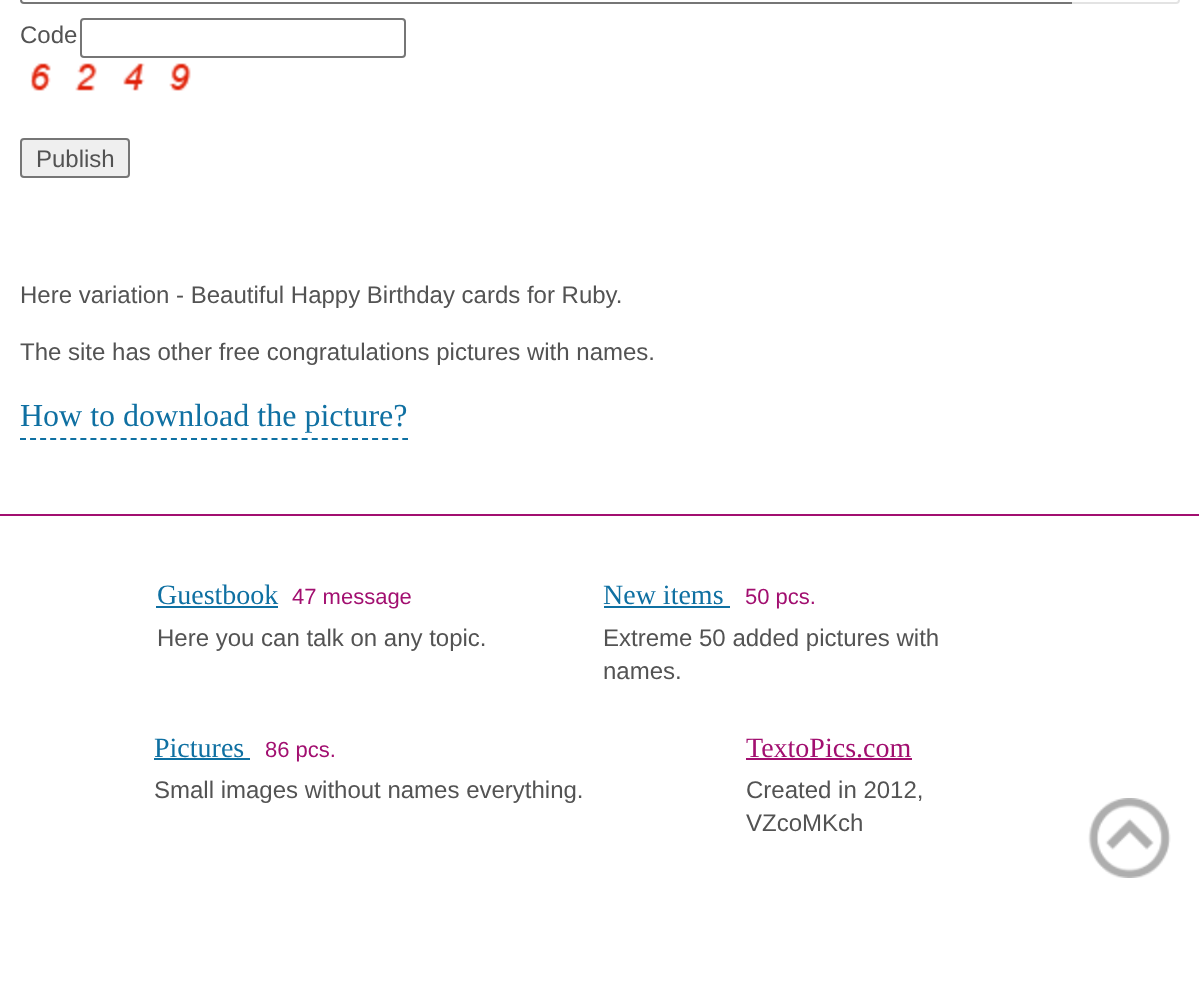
<svg xmlns="http://www.w3.org/2000/svg" width="1199" height="1002" viewBox="0 0 1199 1002">
  <rect width="100%" height="100%" fill="#ffffff"/>
  <rect x="21" y="-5" width="1158" height="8" rx="3" fill="none" stroke="#767676" stroke-width="2"/>
  <rect x="1072" y="0" width="108" height="4" fill="#ffffff" fill-opacity="0.8"/>
  <text x="20" y="43" font-family="Liberation Sans" font-size="24" fill="#535353">Code</text>
  <rect x="81" y="19" width="324" height="38" rx="3" fill="none" stroke="#767676" stroke-width="2"/>
  <image x="30" y="63" width="21" height="28" href="img1.png"/>
  <image x="75" y="63" width="22" height="28" href="img2.png"/>
  <image x="123" y="63" width="22" height="28" href="img3.png"/>
  <image x="169" y="63" width="22" height="28" href="img4.png"/>
  <rect x="21" y="139" width="108" height="38" rx="3" fill="#efefef" stroke="#767676" stroke-width="2"/>
  <text x="36" y="167" font-family="Liberation Sans" font-size="24" fill="#535353">Publish</text>
  <text x="20" y="303" font-family="Liberation Sans" font-size="24" fill="#535353">Here variation - Beautiful Happy Birthday cards for Ruby.</text>
  <text x="20" y="360" font-family="Liberation Sans" font-size="24" fill="#535353">The site has other free congratulations pictures with names.</text>
  <path d="M20 439H408" fill="none" stroke="#0f70a2" stroke-width="2" stroke-dasharray="6 4.06"/>
  <text x="20" y="426" font-family="Liberation Serif" font-size="32" fill="#0f70a2">How to download the picture?</text>
  <rect x="0" y="514" width="1199" height="2" fill="#a20f70"/>
  <text x="157" y="604" font-family="Liberation Serif" font-size="28" fill="#0f70a2">Guestbook</text>
  <rect x="156" y="606" width="122" height="2" fill="#0f70a2"/>
  <text x="292" y="604" font-family="Liberation Sans" font-size="22" fill="#a20f70">47 message</text>
  <text x="157" y="646" font-family="Liberation Sans" font-size="24" fill="#535353">Here you can talk on any topic.</text>
  <text x="603" y="604" font-family="Liberation Serif" font-size="28" fill="#0f70a2">New items</text>
  <rect x="604" y="606" width="126" height="2" fill="#0f70a2"/>
  <text x="745" y="604" font-family="Liberation Sans" font-size="22" fill="#a20f70">50 pcs.</text>
  <text x="603" y="646" font-family="Liberation Sans" font-size="24" fill="#535353">Extreme 50 added pictures with</text>
  <text x="603" y="679" font-family="Liberation Sans" font-size="24" fill="#535353">names.</text>
  <text x="154" y="757" font-family="Liberation Serif" font-size="28" fill="#0f70a2">Pictures</text>
  <rect x="154" y="758" width="96" height="2" fill="#0f70a2"/>
  <text x="265" y="757" font-family="Liberation Sans" font-size="22" fill="#a20f70">86 pcs.</text>
  <text x="154" y="798" font-family="Liberation Sans" font-size="24" fill="#535353">Small images without names everything.</text>
  <text x="746" y="757" font-family="Liberation Serif" font-size="28" fill="#a20f70">TextoPics.com</text>
  <rect x="746" y="758" width="166" height="2" fill="#a20f70"/>
  <text x="746" y="798" font-family="Liberation Sans" font-size="24" fill="#535353">Created in 2012,</text>
  <text x="746" y="831" font-family="Liberation Sans" font-size="24" fill="#535353">VZcoMKch</text>
  <image x="1088" y="798" width="83" height="80" href="img5.png"/>
</svg>
